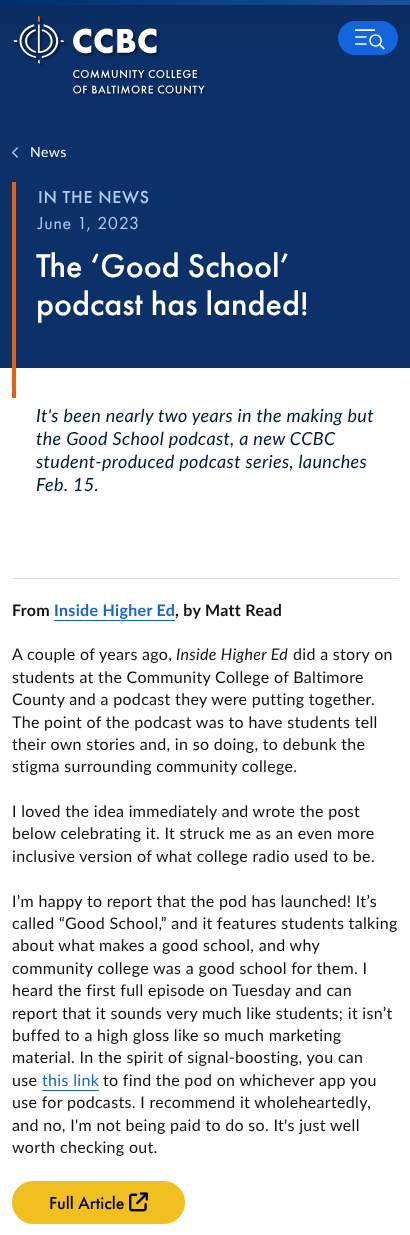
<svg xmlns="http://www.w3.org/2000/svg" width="410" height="1235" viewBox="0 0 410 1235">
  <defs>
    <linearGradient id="g1" gradientUnits="userSpaceOnUse" x1="0" y1="2.5" x2="410" y2="2.5"><stop offset="0" stop-color="#002f6d"/><stop offset="1" stop-color="#19519a"/></linearGradient>
    <linearGradient id="g2" gradientUnits="userSpaceOnUse" x1="205" y1="0" x2="205" y2="50"><stop offset="0" stop-color="#0b2c5f"/><stop offset="1" stop-color="#0c3068"/></linearGradient>
  </defs>
  <rect width="100%" height="100%" fill="#ffffff"/>
  <rect x="0" y="0" width="410" height="5" fill="url(#g1)"/>
  <rect x="0" y="5" width="410" height="45" fill="url(#g2)"/>
  <rect x="0" y="50" width="410" height="318" fill="#0c3068"/>
  <image x="13" y="15" width="194" height="82" href="img1.png"/>
  <rect x="338" y="21" width="60" height="34" rx="17" fill="#1464de"/>
  <image x="355" y="29" width="30" height="21" href="img2.png"/>
  <image x="12" y="147" width="6" height="11" href="img3.png"/>
  <text x="30" y="157" font-family="Lato" font-size="14" letter-spacing="0.5" fill="#ffffff">News</text>
  <rect x="12" y="182" width="4" height="216" fill="#e36113"/>
  <text x="38" y="203" font-family="Futura PT" font-size="18" font-weight="500" letter-spacing="0.75" fill="#b3ccef">IN THE NEWS</text>
  <text x="38" y="229" font-family="Futura PT" font-size="18" letter-spacing="0.75" fill="#b3ccef">June 1, 2023</text>
  <text x="36" y="277" font-family="Futura PT" font-size="34" font-weight="500" fill="#ffffff">The ‘Good School’</text>
  <text x="36" y="315" font-family="Futura PT" font-size="34" font-weight="500" fill="#ffffff">podcast has landed!</text>
  <text x="36" y="422" font-family="Lato" font-size="18" font-style="italic" letter-spacing="0.35" fill="#001a3d">It's been nearly two years in the making but</text>
  <text x="36" y="445" font-family="Lato" font-size="18" font-style="italic" letter-spacing="0.35" fill="#001a3d">the Good School podcast, a new CCBC</text>
  <text x="36" y="468" font-family="Lato" font-size="18" font-style="italic" letter-spacing="0.35" fill="#001a3d">student-produced podcast series, launches</text>
  <text x="36" y="491" font-family="Lato" font-size="18" font-style="italic" letter-spacing="0.35" fill="#001a3d">Feb. 15.</text>
  <rect x="12" y="578" width="386" height="1" fill="#e1e0db"/>
  <text x="12" y="616" font-family="Lato" font-size="16" font-weight="bold" letter-spacing="0.32" fill="#13120e">From</text>
  <text x="54" y="616" font-family="Lato" font-size="16" font-weight="bold" letter-spacing="0.32" fill="#1464de">Inside Higher Ed</text>
  <rect x="54" y="620" width="121" height="1" fill="#1464de"/>
  <text x="175" y="616" font-family="Lato" font-size="16" font-weight="bold" letter-spacing="0.32" fill="#13120e">, by Matt Read</text>
  <text x="12" y="660" font-family="Lato" font-size="16" letter-spacing="0.32" fill="#13120e">A couple of years ago,</text>
  <text x="176" y="660" font-family="Lato" font-size="16" font-style="italic" letter-spacing="0.32" fill="#13120e">Inside Higher Ed</text>
  <text x="293" y="660" font-family="Lato" font-size="16" letter-spacing="0.32" fill="#13120e">did a story on</text>
  <text x="12" y="683" font-family="Lato" font-size="16" letter-spacing="0.32" fill="#13120e">students at the Community College of Baltimore</text>
  <text x="12" y="705" font-family="Lato" font-size="16" letter-spacing="0.32" fill="#13120e">County and a podcast they were putting together.</text>
  <text x="12" y="728" font-family="Lato" font-size="16" letter-spacing="0.32" fill="#13120e">The point of the podcast was to have students tell</text>
  <text x="12" y="750" font-family="Lato" font-size="16" letter-spacing="0.32" fill="#13120e">their own stories and, in so doing, to debunk the</text>
  <text x="12" y="772" font-family="Lato" font-size="16" letter-spacing="0.32" fill="#13120e">stigma surrounding community college.</text>
  <text x="12" y="817" font-family="Lato" font-size="16" letter-spacing="0.32" fill="#13120e">I loved the idea immediately and wrote the post</text>
  <text x="12" y="839" font-family="Lato" font-size="16" letter-spacing="0.32" fill="#13120e">below celebrating it. It struck me as an even more</text>
  <text x="12" y="862" font-family="Lato" font-size="16" letter-spacing="0.32" fill="#13120e">inclusive version of what college radio used to be.</text>
  <text x="12" y="907" font-family="Lato" font-size="16" letter-spacing="0.32" fill="#13120e">I’m happy to report that the pod has launched! It’s</text>
  <text x="12" y="929" font-family="Lato" font-size="16" letter-spacing="0.32" fill="#13120e">called “Good School,” and it features students talking</text>
  <text x="12" y="951" font-family="Lato" font-size="16" letter-spacing="0.32" fill="#13120e">about what makes a good school, and why</text>
  <text x="12" y="974" font-family="Lato" font-size="16" letter-spacing="0.32" fill="#13120e">community college was a good school for them. I</text>
  <text x="12" y="996" font-family="Lato" font-size="16" letter-spacing="0.32" fill="#13120e">heard the first full episode on Tuesday and can</text>
  <text x="12" y="1019" font-family="Lato" font-size="16" letter-spacing="0.32" fill="#13120e">report that it sounds very much like students; it isn’t</text>
  <text x="12" y="1041" font-family="Lato" font-size="16" letter-spacing="0.32" fill="#13120e">buffed to a high gloss like so much marketing</text>
  <text x="12" y="1063" font-family="Lato" font-size="16" letter-spacing="0.32" fill="#13120e">material. In the spirit of signal-boosting, you can</text>
  <text x="12" y="1086" font-family="Lato" font-size="16" letter-spacing="0.32" fill="#13120e">use</text>
  <text x="42" y="1086" font-family="Lato" font-size="16" letter-spacing="0.32" fill="#1464de">this link</text>
  <rect x="42" y="1090" width="57" height="1" fill="#1464de"/>
  <text x="103" y="1086" font-family="Lato" font-size="16" letter-spacing="0.32" fill="#13120e">to find the pod on whichever app you</text>
  <text x="12" y="1108" font-family="Lato" font-size="16" letter-spacing="0.32" fill="#13120e">use for podcasts. I recommend it wholeheartedly,</text>
  <text x="12" y="1131" font-family="Lato" font-size="16" letter-spacing="0.32" fill="#13120e">and no, I'm not being paid to do so. It's just well</text>
  <text x="12" y="1153" font-family="Lato" font-size="16" letter-spacing="0.32" fill="#13120e">worth checking out.</text>
  <rect x="13" y="1182" width="171" height="41" rx="20.5" fill="#f0bf20" stroke="#f0bf20" stroke-width="2"/>
  <text x="49" y="1209" font-family="Futura PT" font-size="18" font-weight="500" fill="#000000">Full Article</text>
  <image x="129" y="1192" width="19" height="20" href="img4.png"/>
</svg>
